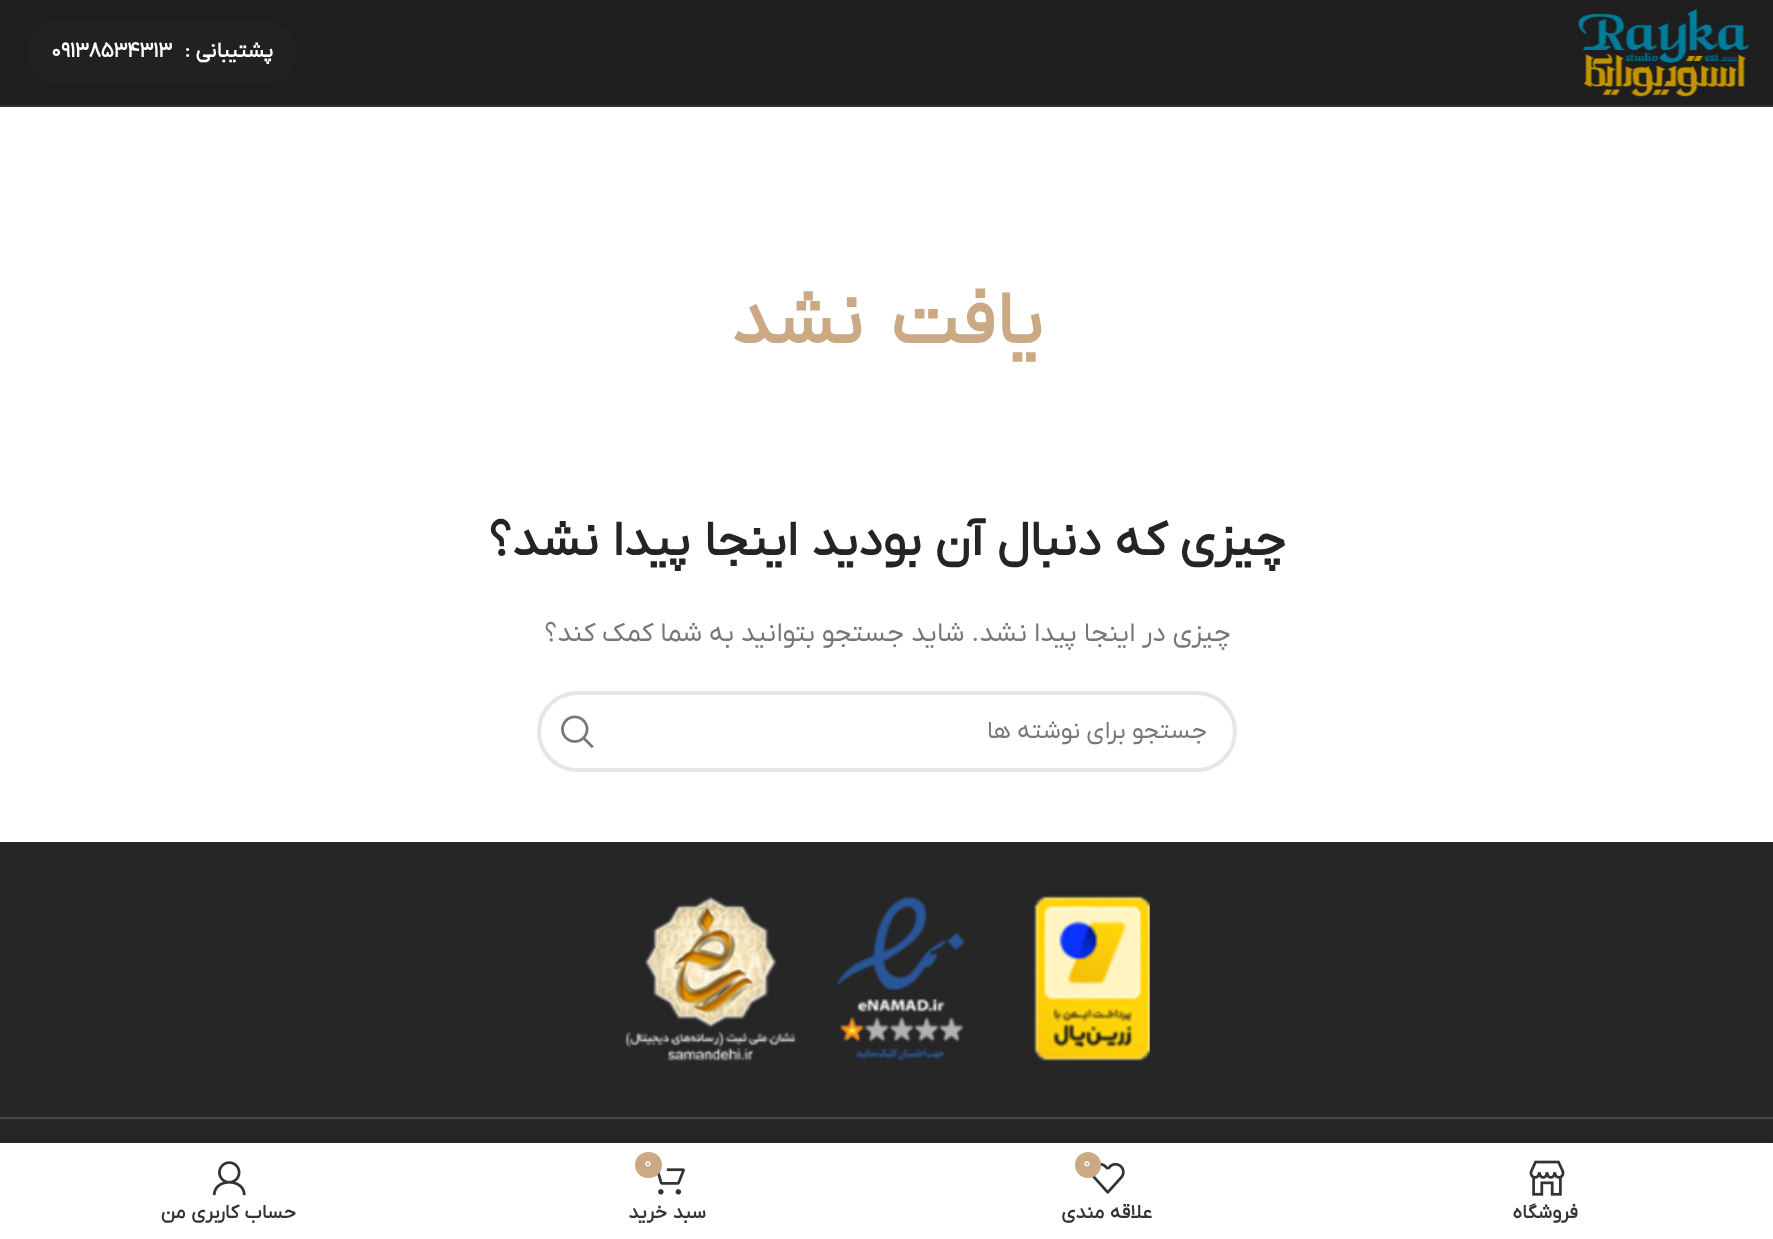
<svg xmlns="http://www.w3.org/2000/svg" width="1773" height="1239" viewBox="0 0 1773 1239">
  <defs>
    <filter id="blur1" x="-50%" y="-200%" width="200%" height="500%"><feGaussianBlur stdDeviation="8"/></filter>
  </defs>
  <rect width="100%" height="100%" fill="#ffffff"/>
  <rect x="0" y="0" width="1773" height="105" fill="#1e1e1e"/>
  <rect x="0" y="105" width="1773" height="2" fill="#323232"/>
  <image x="1578" y="8" width="171" height="89" href="img1.png"/>
  <rect x="26" y="21" width="272" height="63" rx="31.5" fill="#212121"/>
  <text x="273" y="57" font-family="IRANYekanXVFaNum" font-size="21" font-weight="bold" direction="rtl" fill="#ffffff">پشتیبانی :</text>
  <text x="51" y="57" font-family="IRANYekanXVFaNum" font-size="21" font-weight="bold" fill="#ffffff">09138534313</text>
  <text x="1043" y="343" word-spacing="9" font-family="IRANYekanXVFaNum" font-size="74.5" font-weight="bold" direction="rtl" fill="#caa984">یافت نشد</text>
  <text x="1286" y="555" word-spacing="1" font-family="IRANYekanXVFaNum" font-size="49" font-weight="bold" direction="rtl" fill="#242424">چیزی که دنبال آن بودید اینجا پیدا نشد؟</text>
  <text x="1231" y="641" font-family="IRANYekanXVFaNum" font-size="26.95" direction="rtl" fill="#777777">چیزی در اینجا پیدا نشد. شاید جستجو بتوانید به شما کمک کند؟</text>
  <rect x="539" y="693" width="696" height="77" rx="38.5" fill="none" stroke="#e6e6e6" stroke-width="4"/>
  <text x="1207" y="738" font-family="IRANYekanXVFaNum" font-size="24.5" direction="rtl" fill="#777777">جستجو برای نوشته ها</text>
  <image x="561" y="715" width="33" height="34" href="img2.png"/>
  <rect x="0" y="842" width="1773" height="301" fill="#262626"/>
  <image x="624" y="895" width="526" height="166" href="img3.png"/>
  <rect x="0" y="1117" width="1773" height="2" fill="#474747"/>
  <rect x="0" y="1143" width="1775" height="96" fill="#000000" fill-opacity="0.12" filter="url(#blur1)"/>
  <rect x="0" y="1143" width="1773" height="96" fill="#ffffff"/>
  <image x="1529" y="1160" width="36" height="36" href="img4.png"/>
  <text x="1578" y="1218" font-family="IRANYekanXVFaNum" font-size="19.25" font-weight="bold" direction="rtl" fill="#333333">فروشگاه</text>
  <image x="1092" y="1162" width="33" height="32" href="img5.png"/>
  <circle cx="1088" cy="1165" r="13" fill="#caa984"/>
  <text x="1083" y="1167" font-family="IRANYekanXVFaNum" font-size="16" fill="#ffffff">0</text>
  <text x="1152" y="1218" word-spacing="1" font-family="IRANYekanXVFaNum" font-size="19.25" font-weight="bold" direction="rtl" fill="#333333">علاقه مندی</text>
  <image x="657" y="1168" width="28" height="27" href="img6.png"/>
  <rect x="635" y="1152" width="27" height="26" rx="13" fill="#caa984"/>
  <text x="644" y="1167" font-family="IRANYekanXVFaNum" font-size="16" fill="#ffffff">0</text>
  <text x="706" y="1218" word-spacing="1" font-family="IRANYekanXVFaNum" font-size="19.25" font-weight="bold" direction="rtl" fill="#333333">سبد خرید</text>
  <image x="212" y="1161" width="34" height="35" href="img7.png"/>
  <text x="296" y="1218" word-spacing="1" font-family="IRANYekanXVFaNum" font-size="19.25" font-weight="bold" direction="rtl" fill="#333333">حساب کاربری من</text>
</svg>
